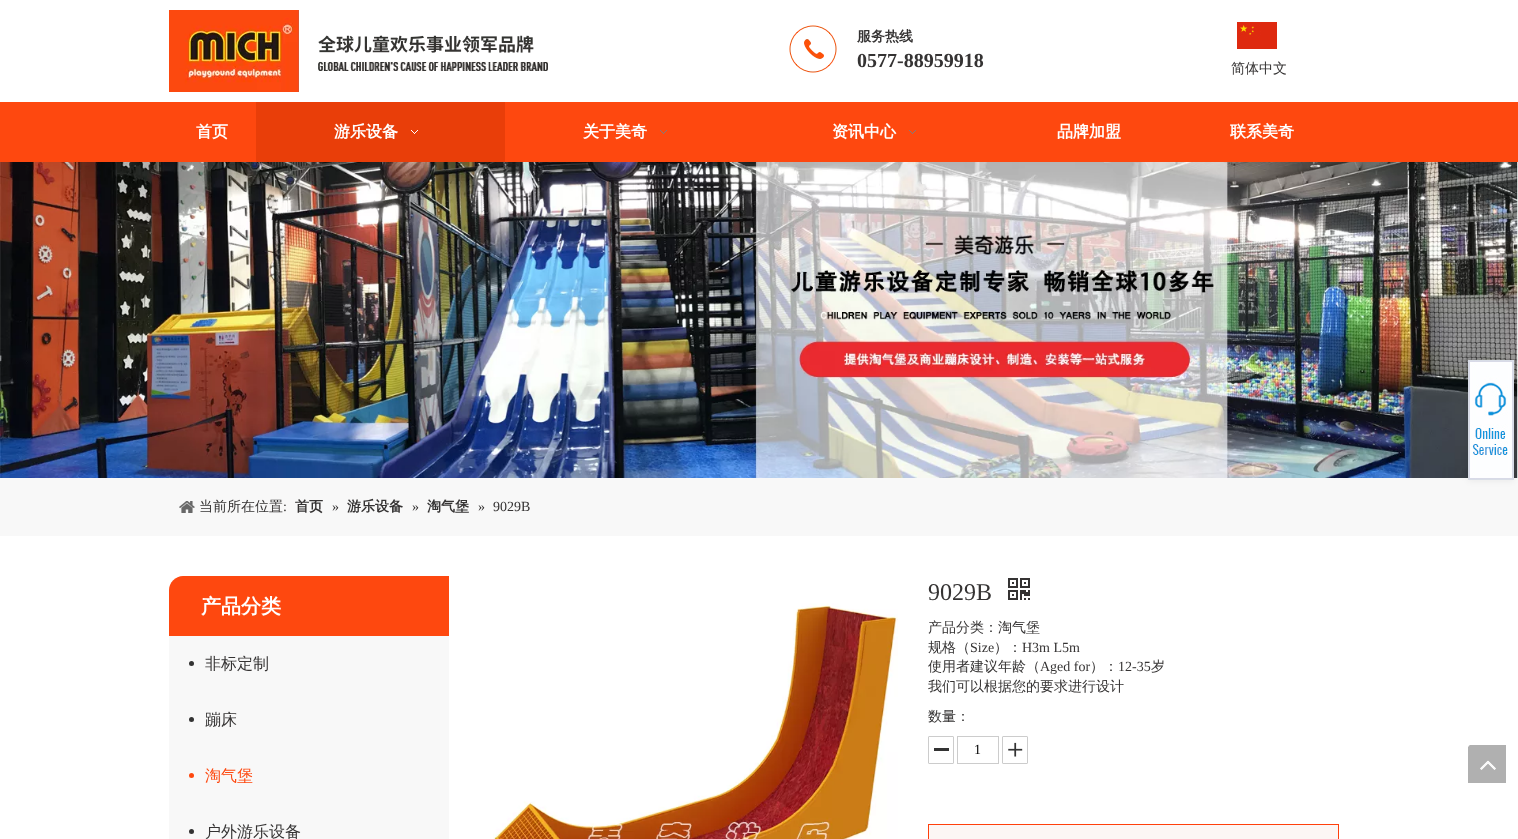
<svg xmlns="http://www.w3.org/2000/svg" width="1518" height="839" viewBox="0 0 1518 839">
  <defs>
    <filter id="blur1" x="-50%" y="-200%" width="200%" height="500%"><feGaussianBlur stdDeviation="3"/></filter>
  </defs>
  <rect width="100%" height="100%" fill="#ffffff"/>
  <image x="169" y="10" width="379" height="82" href="img1.png"/>
  <image x="789" y="25" width="48" height="48" href="img2.png"/>
  <text x="857" y="41" font-family="WenQuanYi Zen Hei" font-size="14" font-weight="bold" fill="#353333">服务热线</text>
  <text x="857" y="67" font-family="Liberation Serif" font-size="20" font-weight="bold" fill="#353333">0577-88959918</text>
  <image x="1237" y="22" width="40" height="27" href="img3.png"/>
  <text x="1231" y="73" font-family="WenQuanYi Zen Hei" font-size="14" font-weight="500" fill="#353333">简体中文</text>
  <rect x="0" y="102" width="1518" height="60" fill="#fe480f"/>
  <text x="196" y="137" font-family="WenQuanYi Zen Hei" font-size="16" font-weight="bold" fill="#ffffff">首页</text>
  <rect x="256" y="102" width="249" height="60" fill="#e93e09"/>
  <text x="334" y="137" font-family="WenQuanYi Zen Hei" font-size="16" font-weight="bold" fill="#ffffff">游乐设备</text>
  <image x="411" y="130" width="7" height="4" href="img4.png"/>
  <text x="583" y="137" font-family="WenQuanYi Zen Hei" font-size="16" font-weight="bold" fill="#ffffff">关于美奇</text>
  <image x="660" y="130" width="7" height="4" href="img5.png"/>
  <text x="832" y="137" font-family="WenQuanYi Zen Hei" font-size="16" font-weight="bold" fill="#ffffff">资讯中心</text>
  <image x="909" y="130" width="7" height="4" href="img5.png"/>
  <text x="1057" y="137" font-family="WenQuanYi Zen Hei" font-size="16" font-weight="bold" fill="#ffffff">品牌加盟</text>
  <text x="1230" y="137" font-family="WenQuanYi Zen Hei" font-size="16" font-weight="bold" fill="#ffffff">联系美奇</text>
  <image x="0" y="162" width="1518" height="316" href="img7.png"/>
  <rect x="0" y="478" width="1518" height="58" fill="#f8f8f8"/>
  <rect x="1468" y="361" width="46" height="120" fill="#000000" fill-opacity="0.06" filter="url(#blur1)"/>
  <image x="1469" y="361" width="44" height="118" href="img6.png"/>
  <rect x="1468.5" y="360.5" width="45" height="119" fill="none" stroke="#d8dde6"/>
  <image x="179" y="501" width="16" height="12" href="img8.png"/>
  <text x="199" y="511" font-family="WenQuanYi Zen Hei" font-size="14" font-weight="500" fill="#353333">当前所在位置</text>
  <text x="283" y="511" font-family="Liberation Serif" font-size="14" fill="#353333">:</text>
  <text x="295" y="511" font-family="WenQuanYi Zen Hei" font-size="14" font-weight="bold" fill="#353333">首页</text>
  <text x="332" y="511" font-family="Liberation Serif" font-size="14" fill="#353333">»</text>
  <text x="347" y="511" font-family="WenQuanYi Zen Hei" font-size="14" font-weight="bold" fill="#353333">游乐设备</text>
  <text x="412" y="511" font-family="Liberation Serif" font-size="14" fill="#353333">»</text>
  <text x="427" y="511" font-family="WenQuanYi Zen Hei" font-size="14" font-weight="bold" fill="#353333">淘气堡</text>
  <text x="478" y="511" font-family="Liberation Serif" font-size="14" fill="#353333">»</text>
  <text x="493" y="511" font-family="Liberation Serif" font-size="14" fill="#353333">9029B</text>
  <path d="M183 576H449V636H169V590C169 582.5 175.5 576 183 576Z" fill="#fe480f"/>
  <text x="201" y="613" font-family="WenQuanYi Zen Hei" font-size="20" font-weight="bold" fill="#ffffff">产品分类</text>
  <rect x="169" y="636" width="280" height="203" fill="#f8f8f8"/>
  <circle cx="191.5" cy="663.5" r="2.5" fill="#333333"/>
  <text x="205" y="669" font-family="WenQuanYi Zen Hei" font-size="16" font-weight="500" fill="#353333">非标定制</text>
  <circle cx="191.5" cy="719.5" r="2.5" fill="#333333"/>
  <text x="205" y="725" font-family="WenQuanYi Zen Hei" font-size="16" font-weight="500" fill="#353333">蹦床</text>
  <circle cx="191.5" cy="775.5" r="2.5" fill="#fe480f"/>
  <text x="205" y="781" font-family="WenQuanYi Zen Hei" font-size="16" font-weight="500" fill="#fe480f">淘气堡</text>
  <circle cx="191.5" cy="831.5" r="2.5" fill="#333333"/>
  <text x="205" y="837" font-family="WenQuanYi Zen Hei" font-size="16" font-weight="500" fill="#353333">户外游乐设备</text>
  <image x="493" y="603" width="405" height="236" href="img9.png"/>
  <text x="928" y="600" font-family="Liberation Serif" font-size="24" fill="#353333">9029B</text>
  <image x="1008" y="578" width="22" height="22" href="img10.png"/>
  <text x="928" y="632" font-family="WenQuanYi Zen Hei" font-size="14" font-weight="500" fill="#353333">产品分类：淘气堡</text>
  <text x="928" y="652" font-family="WenQuanYi Zen Hei" font-size="14" font-weight="500" fill="#353333">规格（</text>
  <text x="970" y="652" font-family="Liberation Serif" font-size="14" fill="#353333">Size</text>
  <text x="994" y="652" font-family="WenQuanYi Zen Hei" font-size="14" font-weight="500" fill="#353333">）：</text>
  <text x="1022" y="652" font-family="Liberation Serif" font-size="14" fill="#353333">H3m L5m</text>
  <text x="928" y="671" font-family="WenQuanYi Zen Hei" font-size="14" font-weight="500" fill="#353333">使用者建议年龄（</text>
  <text x="1040" y="671" font-family="Liberation Serif" font-size="14" fill="#353333">Aged for</text>
  <text x="1090" y="671" font-family="WenQuanYi Zen Hei" font-size="14" font-weight="500" fill="#353333">）：</text>
  <text x="1118" y="671" font-family="Liberation Serif" font-size="14" fill="#353333">12-35</text>
  <text x="1151" y="671" font-family="WenQuanYi Zen Hei" font-size="14" font-weight="500" fill="#353333">岁</text>
  <text x="928" y="691" font-family="WenQuanYi Zen Hei" font-size="14" font-weight="500" fill="#353333">我们可以根据您的要求进行设计</text>
  <text x="928" y="721" font-family="WenQuanYi Zen Hei" font-size="14" font-weight="500" fill="#353333">数量：</text>
  <rect x="934" y="748" width="15" height="3" fill="#333333"/>
  <rect x="928.5" y="736.5" width="25" height="27" rx="0.5" fill="none" stroke="#cccccc"/>
  <rect x="957.5" y="736.5" width="41" height="27" fill="none" stroke="#cccccc"/>
  <text x="974" y="754" font-family="Liberation Serif" font-size="14" fill="#000000">1</text>
  <image x="1008" y="742" width="15" height="15" href="img11.png"/>
  <rect x="1002.5" y="736.5" width="25" height="27" rx="0.5" fill="none" stroke="#cccccc"/>
  <rect x="928.5" y="824.5" width="410" height="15" fill="#fcf6f4" stroke="#ff400c"/>
  <image x="1468" y="745" width="38" height="38" href="img12.png"/>
</svg>
